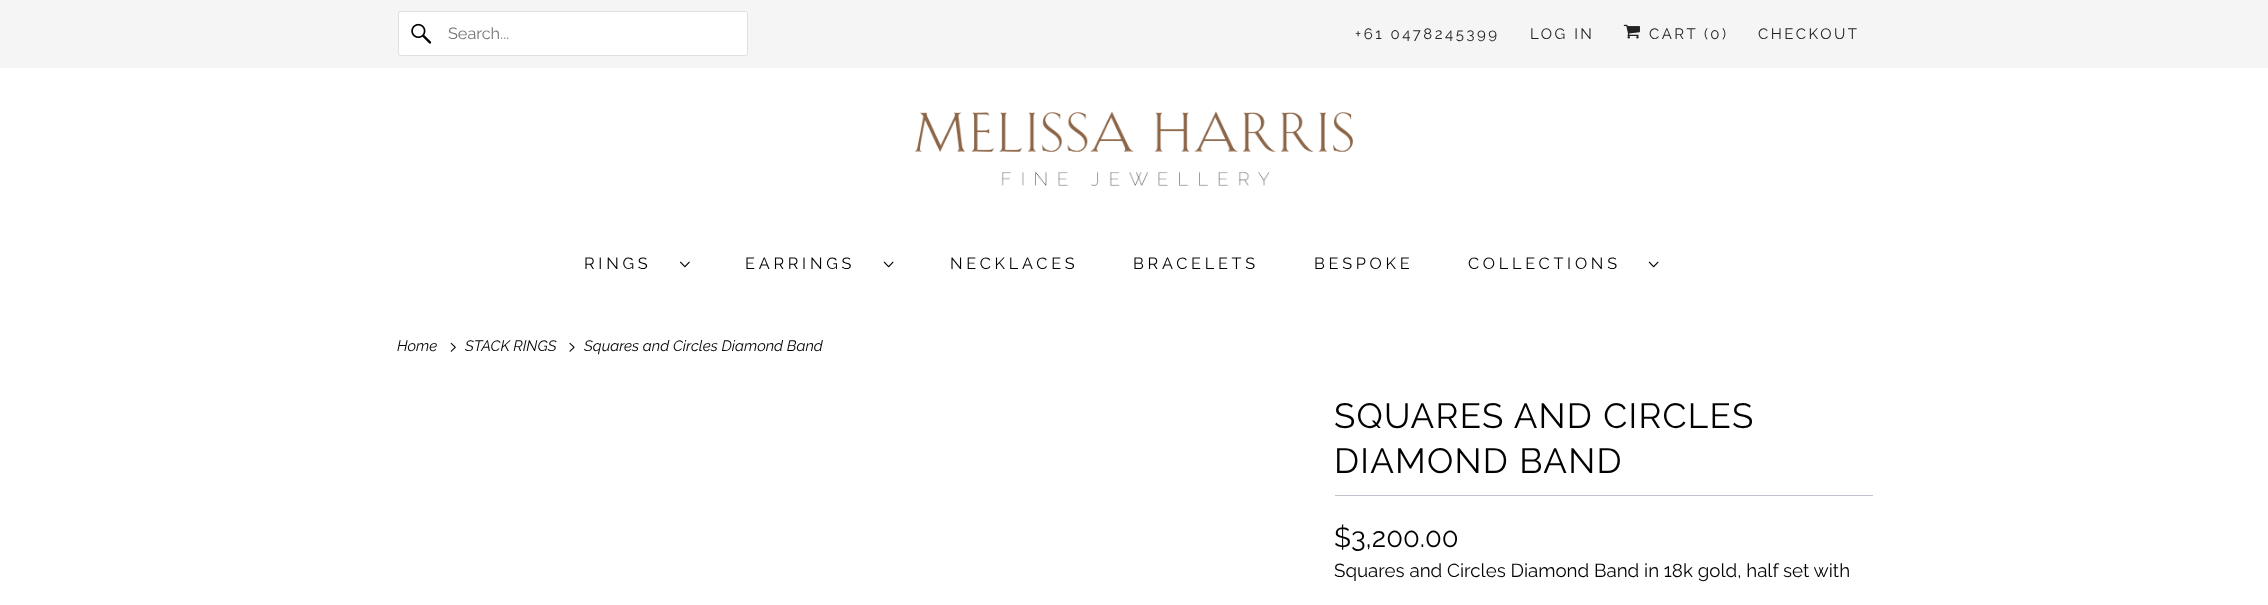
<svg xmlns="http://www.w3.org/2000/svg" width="2268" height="605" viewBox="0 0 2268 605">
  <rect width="100%" height="100%" fill="#ffffff"/>
  <rect x="0" y="0" width="2268" height="68" fill="#f5f5f5"/>
  <rect x="398.5" y="11.5" width="349" height="44" rx="2" fill="#ffffff" stroke="#dfdfdf"/>
  <image x="411" y="23" width="21" height="21" href="img1.png"/>
  <text x="448" y="39" font-family="Raleway" font-size="16.25" fill="#757575">Search...</text>
  <text x="1355" y="39" font-family="Raleway" font-size="15" letter-spacing="2.5" fill="#222222">+61 0478245399</text>
  <text x="1530" y="39" font-family="Raleway" font-size="15" letter-spacing="2.5" fill="#222222">LOG IN</text>
  <image x="1623" y="24" width="17" height="15" href="img2.png"/>
  <text x="1649" y="39" font-family="Raleway" font-size="15" letter-spacing="2.5" fill="#222222">CART (0</text>
  <text x="1722" y="39" font-family="Raleway" font-size="15" letter-spacing="2.5" fill="#222222">)</text>
  <text x="1758" y="39" font-family="Raleway" font-size="15" letter-spacing="2.5" fill="#222222">CHECKOUT</text>
  <image x="914" y="111" width="439" height="75" href="img3.png"/>
  <text x="584" y="269" font-family="Raleway" font-size="16.25" letter-spacing="3.75" fill="#000000">RINGS</text>
  <image x="680" y="261" width="10" height="7" href="img4.png"/>
  <text x="745" y="269" font-family="Raleway" font-size="16.25" letter-spacing="3.75" fill="#000000">EARRINGS</text>
  <image x="883" y="261" width="11" height="7" href="img5.png"/>
  <text x="950" y="269" font-family="Raleway" font-size="16.25" letter-spacing="3.75" fill="#000000">NECKLACES</text>
  <text x="1133" y="269" font-family="Raleway" font-size="16.25" letter-spacing="3.75" fill="#000000">BRACELETS</text>
  <text x="1314" y="269" font-family="Raleway" font-size="16.25" letter-spacing="3.75" fill="#000000">BESPOKE</text>
  <text x="1468" y="269" font-family="Raleway" font-size="16.25" letter-spacing="3.75" fill="#000000">COLLECTIONS</text>
  <image x="1648" y="261" width="11" height="7" href="img5.png"/>
  <text x="397" y="351" font-family="Raleway" font-size="15" font-style="italic" fill="#000000">Home</text>
  <image x="450" y="342" width="6" height="10" href="img6.png"/>
  <text x="465" y="351" font-family="Raleway" font-size="15" font-style="italic" fill="#000000">STACK RINGS</text>
  <image x="569" y="342" width="6" height="10" href="img7.png"/>
  <text x="584" y="351" font-family="Raleway" font-size="15" font-style="italic" fill="#000000">Squares and Circles Diamond Band</text>
  <rect x="1335" y="495" width="538" height="1" fill="#c2c1cc"/>
  <text x="1334" y="428" font-family="Raleway" font-size="35" letter-spacing="1.25" fill="#000000">SQUARES AND CIRCLES</text>
  <text x="1334" y="473" font-family="Raleway" font-size="35" letter-spacing="1.25" fill="#000000">DIAMOND BAND</text>
  <text x="1334" y="547" font-family="Raleway" font-size="27.5" fill="#000000">$3,200.00</text>
  <text x="1334" y="577" font-family="Raleway" font-size="18.75" fill="#000000">Squares and Circles Diamond Band in 18k gold, half set with</text>
</svg>
